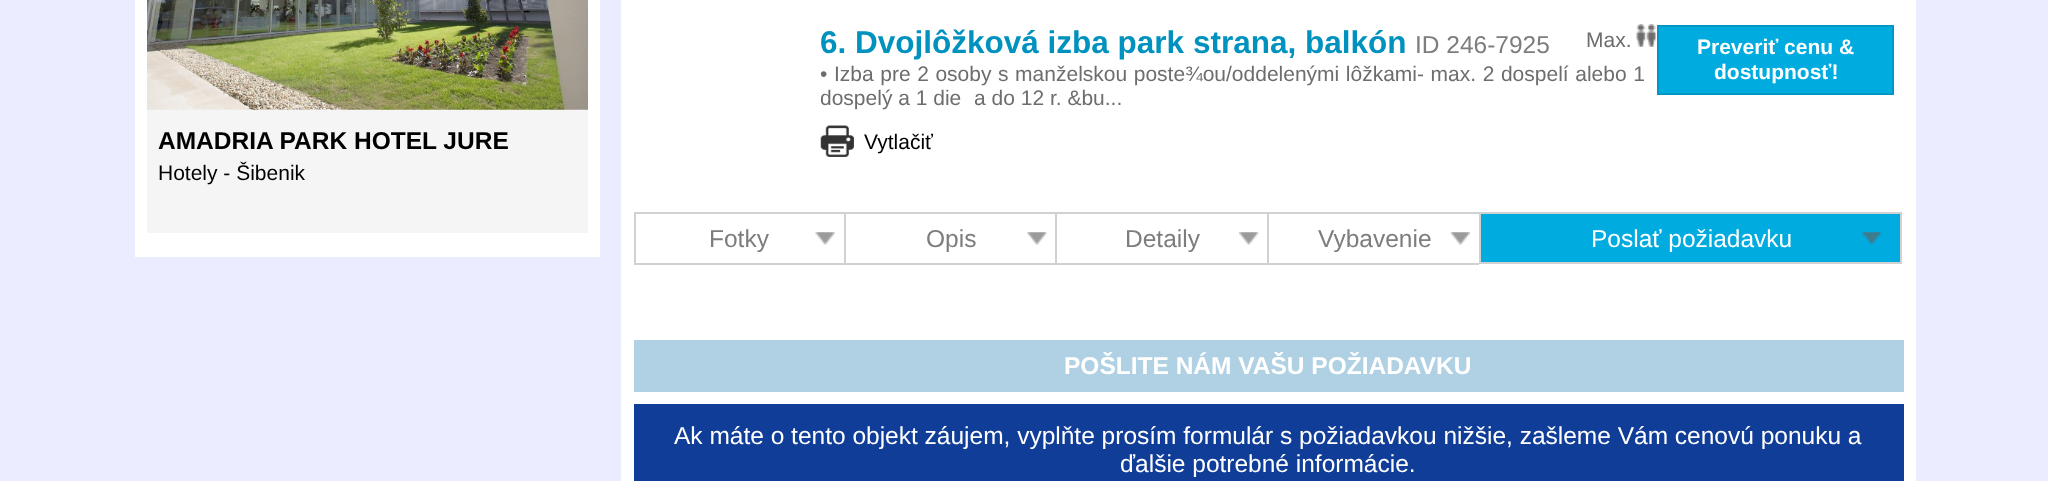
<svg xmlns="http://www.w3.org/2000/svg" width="2048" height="481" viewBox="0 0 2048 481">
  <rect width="100%" height="100%" fill="#ebecff"/>
  <rect x="135" y="0" width="465" height="257" fill="#ffffff"/>
  <rect x="147" y="109" width="441" height="124" fill="#f5f5f5"/>
  <image x="147" y="0" width="441" height="110" href="img1.png"/>
  <text x="158" y="149" font-family="Liberation Sans" font-size="24.5" font-weight="bold" fill="#000000">AMADRIA PARK HOTEL JURE</text>
  <text x="158" y="180" font-family="Liberation Sans" font-size="21" fill="#000000">Hotely - Šibenik</text>
  <rect x="621" y="0" width="1295" height="481" fill="#ffffff"/>
  <text x="820" y="53" font-family="Liberation Sans" font-size="31.5" font-weight="bold" fill="#0092be">6. Dvojlôžková izba park strana, balkón</text>
  <text x="1415" y="53" font-family="Liberation Sans" font-size="24.5" fill="#7d7d7d">ID 246-7925</text>
  <text x="1586" y="47" font-family="Liberation Sans" font-size="21" fill="#6f6c6d">Max.</text>
  <image x="1636" y="24" width="21" height="23" href="img2.png"/>
  <text x="820" y="81" word-spacing="0.75" font-family="Liberation Sans" font-size="21" fill="#6f6c6d">• Izba pre 2 osoby s manželskou poste¾ou/oddelenými lôžkami- max. 2 dospelí alebo 1</text>
  <text x="820" y="105" font-family="Liberation Sans" font-size="21" fill="#6f6c6d">dospelý a 1 die</text>
  <text x="974" y="105" font-family="Liberation Sans" font-size="21" fill="#6f6c6d">a do 12 r. &amp;bu...</text>
  <image x="820" y="125" width="34" height="32" href="img3.png"/>
  <text x="864" y="149" font-family="Liberation Sans" font-size="21" fill="#000000">Vytlačiť</text>
  <rect x="1658" y="26" width="235" height="68" fill="#00abdf" stroke="#0097c5" stroke-width="2"/>
  <text x="1697" y="54" font-family="Liberation Sans" font-size="21" font-weight="bold" fill="#ffffff">Preveriť cenu &amp;</text>
  <text x="1714" y="79" font-family="Liberation Sans" font-size="21" font-weight="bold" fill="#ffffff">dostupnosť!</text>
  <image x="815" y="232" width="20" height="13" href="img4.png"/>
  <rect x="634" y="212" width="845" height="2" fill="#d1d1d1"/>
  <rect x="634" y="263" width="845" height="2" fill="#d1d1d1"/>
  <rect x="634" y="212" width="2" height="52" fill="#d1d1d1"/>
  <text x="709" y="247" font-family="Liberation Sans" font-size="24.5" fill="#7d7d7d">Fotky</text>
  <image x="1027" y="232" width="20" height="13" href="img5.png"/>
  <rect x="844" y="212" width="2" height="52" fill="#d1d1d1"/>
  <text x="926" y="247" font-family="Liberation Sans" font-size="24.5" fill="#7d7d7d">Opis</text>
  <image x="1239" y="232" width="20" height="13" href="img6.png"/>
  <rect x="1055" y="212" width="2" height="52" fill="#d1d1d1"/>
  <text x="1125" y="247" font-family="Liberation Sans" font-size="24.5" fill="#7d7d7d">Detaily</text>
  <image x="1450" y="232" width="20" height="13" href="img7.png"/>
  <rect x="1267" y="212" width="2" height="52" fill="#d1d1d1"/>
  <text x="1318" y="247" font-family="Liberation Sans" font-size="24.5" fill="#7d7d7d">Vybavenie</text>
  <rect x="1481" y="214" width="419" height="48" fill="#00abdf"/>
  <image x="1862" y="232" width="20" height="13" href="img8.png"/>
  <rect x="1480" y="213" width="421" height="50" fill="none" stroke="#d1d1d1" stroke-width="2"/>
  <text x="1591" y="247" font-family="Liberation Sans" font-size="24.5" fill="#ffffff">Poslať požiadavku</text>
  <rect x="634" y="340" width="1270" height="52" fill="#b0d1e4"/>
  <text x="1064" y="374" font-family="Liberation Sans" font-size="24.5" font-weight="bold" fill="#ffffff">POŠLITE NÁM VAŠU POŽIADAVKU</text>
  <rect x="634" y="404" width="1270" height="77" fill="#0f3d97"/>
  <text x="674" y="444" font-family="Liberation Sans" font-size="24.5" fill="#ffffff">Ak máte o tento objekt záujem, vyplňte prosím formulár s požiadavkou nižšie, zašleme Vám cenovú ponuku a</text>
  <text x="1120" y="472" font-family="Liberation Sans" font-size="24.5" fill="#ffffff">ďalšie potrebné informácie.</text>
</svg>
